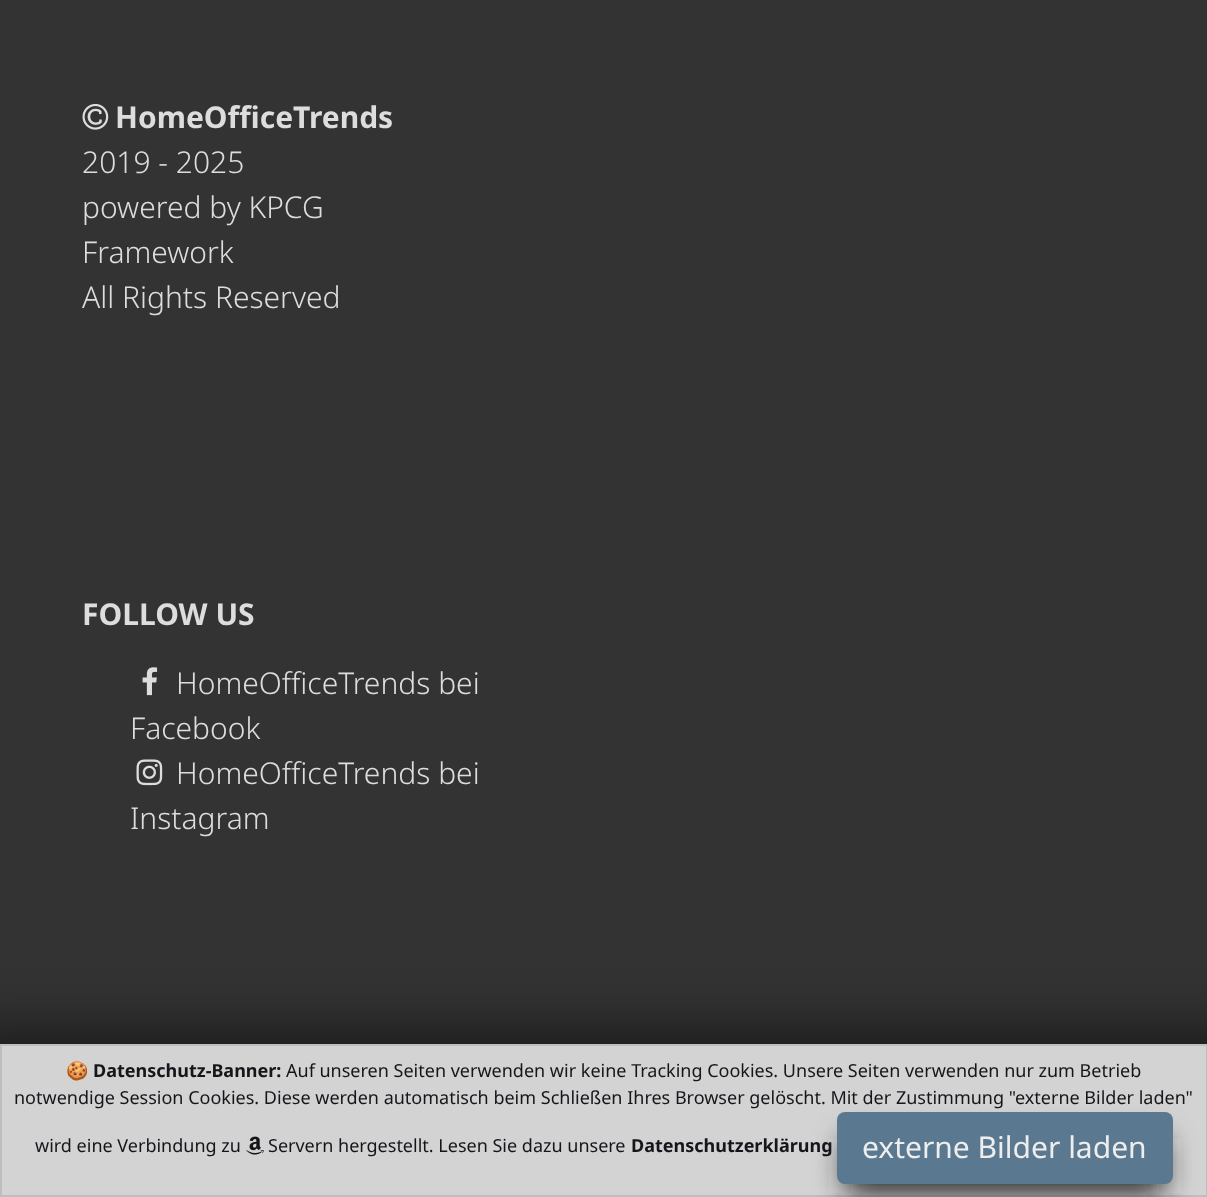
<svg xmlns="http://www.w3.org/2000/svg" width="1207" height="1197" viewBox="0 0 1207 1197">
  <defs>
    <filter id="blur1" x="-50%" y="-200%" width="200%" height="500%"><feGaussianBlur stdDeviation="37.5"/></filter>
    <filter id="blur2" x="-50%" y="-200%" width="200%" height="500%"><feGaussianBlur stdDeviation="15"/></filter>
  </defs>
  <rect width="100%" height="100%" fill="#333333"/>
  <image x="82" y="103" width="27" height="27" href="img1.png"/>
  <text x="115" y="128" font-family="Noto Sans" font-size="30" font-weight="bold" fill="#dddddd">HomeOfficeTrends</text>
  <text x="82" y="173" font-family="Noto Sans" font-size="30" font-weight="300" fill="#dddddd">2019 - 2025</text>
  <text x="82" y="218" font-family="Noto Sans" font-size="30" font-weight="300" fill="#dddddd">powered by KPCG</text>
  <text x="82" y="263" font-family="Noto Sans" font-size="30" font-weight="300" fill="#dddddd">Framework</text>
  <text x="82" y="308" font-family="Noto Sans" font-size="30" font-weight="300" fill="#dddddd">All Rights Reserved</text>
  <text x="82" y="625" font-family="Noto Sans" font-size="30" font-weight="bold" fill="#dddddd">FOLLOW US</text>
  <image x="142" y="667" width="16" height="29" href="img2.png"/>
  <text x="176" y="694" font-family="Noto Sans" font-size="30" font-weight="300" fill="#dddddd">HomeOfficeTrends bei</text>
  <text x="130" y="739" font-family="Noto Sans" font-size="30" font-weight="300" fill="#dddddd">Facebook</text>
  <image x="136" y="759" width="27" height="27" href="img3.png"/>
  <text x="176" y="784" font-family="Noto Sans" font-size="30" font-weight="300" fill="#dddddd">HomeOfficeTrends bei</text>
  <text x="130" y="829" font-family="Noto Sans" font-size="30" font-weight="300" fill="#dddddd">Instagram</text>
  <rect x="-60" y="1044" width="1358" height="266" fill="#000000" fill-opacity="0.7" filter="url(#blur1)"/>
  <rect x="1" y="1045" width="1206" height="151" fill="#d3d3d4" stroke="#bcbebf" stroke-width="2"/>
  <text x="66" y="1077" font-family="Noto Color Emoji" font-size="18" fill="#141619">🍪</text>
  <text x="93" y="1077" font-family="Noto Sans" font-size="18" font-weight="bold" fill="#141619">Datenschutz-Banner:</text>
  <text x="286" y="1077" font-family="Noto Sans" font-size="18" fill="#141619">Auf unseren Seiten verwenden wir keine Tracking Cookies. Unsere Seiten verwenden nur zum Betrieb</text>
  <text x="14" y="1104" font-family="Noto Sans" font-size="18" fill="#141619">notwendige Session Cookies. Diese werden automatisch beim Schließen Ihres Browser gelöscht. Mit der Zustimmung "externe Bilder laden"</text>
  <text x="35" y="1152" font-family="Noto Sans" font-size="18" fill="#141619">wird eine Verbindung zu</text>
  <image x="246" y="1136" width="18" height="19" href="img4.png"/>
  <text x="268" y="1152" font-family="Noto Sans" font-size="18" fill="#141619">Servern hergestellt. Lesen Sie dazu unsere</text>
  <text x="631" y="1152" font-family="Noto Sans" font-size="18" font-weight="bold" fill="#141619">Datenschutzerklärung</text>
  <rect x="846" y="1139" width="318" height="54" fill="#222222" filter="url(#blur2)"/>
  <rect x="837" y="1112" width="336" height="72" rx="8" fill="#5a788f"/>
  <text x="862" y="1158" font-family="Noto Sans" font-size="30" fill="#eeeeee">externe Bilder laden</text>
</svg>
